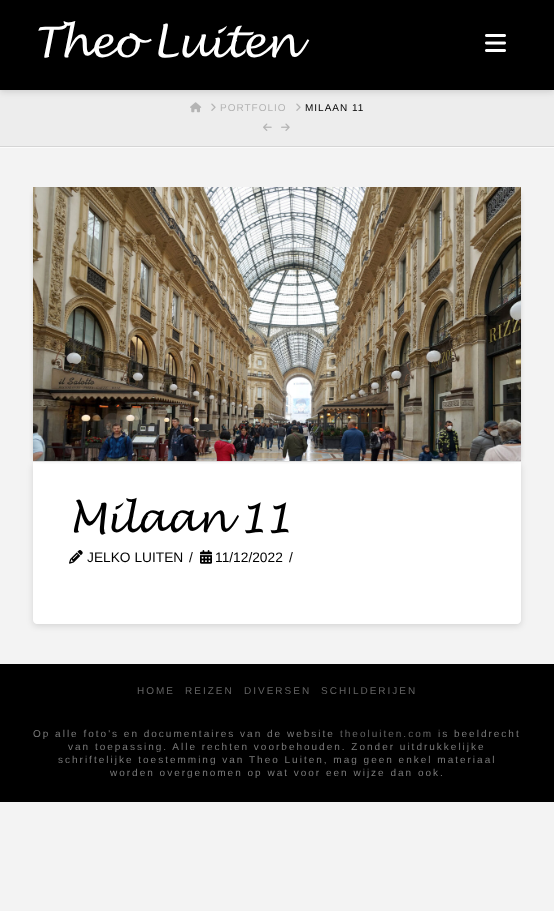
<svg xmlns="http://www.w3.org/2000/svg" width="554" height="911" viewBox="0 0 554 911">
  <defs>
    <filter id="blur1" x="-50%" y="-200%" width="200%" height="500%"><feGaussianBlur stdDeviation="3"/></filter>
    <filter id="blur2" x="-50%" y="-200%" width="200%" height="500%"><feGaussianBlur stdDeviation="2"/></filter>
  </defs>
  <rect width="100%" height="100%" fill="#f3f3f3"/>
  <rect x="0" y="90" width="554" height="56" fill="#ededed"/>
  <rect x="0" y="2" width="554" height="90" fill="#000000" fill-opacity="0.13" filter="url(#blur1)"/>
  <rect x="0" y="0" width="554" height="90" fill="#000000"/>
  <text x="33" y="57" font-family="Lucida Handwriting" font-size="42" font-style="italic" letter-spacing="-1.5" fill="#ffffff">Theo Luiten</text>
  <image x="485" y="34" width="21" height="18" href="img1.png"/>
  <rect x="0" y="147" width="554" height="1" fill="#fcfcfc"/>
  <rect x="0" y="146" width="554" height="1" fill="#d5d5d5"/>
  <image x="190" y="102" width="12" height="11" href="img2.png"/>
  <image x="211" y="103" width="5" height="8" href="img3.png"/>
  <text x="220" y="111" font-family="Liberation Sans" font-size="10" letter-spacing="1" fill="#b4b4b4">PORTFOLIO</text>
  <image x="296" y="103" width="5" height="8" href="img3.png"/>
  <text x="305" y="111" font-family="Liberation Sans" font-size="10" letter-spacing="1" fill="#000000">MILAAN 11</text>
  <image x="263" y="123" width="9" height="8" href="img4.png"/>
  <image x="281" y="123" width="9" height="8" href="img5.png"/>
  <rect x="33" y="464" width="488" height="162" rx="4" fill="#000000" fill-opacity="0.13" filter="url(#blur1)"/>
  <path d="M33 462H521V620C521 622 519 624 517 624H37C35 624 33 622 33 620Z" fill="#ffffff"/>
  <rect x="33" y="193" width="480" height="267" fill="#000000" fill-opacity="0.13" filter="url(#blur2)"/>
  <rect x="41" y="193" width="480" height="267" fill="#000000" fill-opacity="0.13" filter="url(#blur2)"/>
  <rect x="33" y="461" width="488" height="1" fill="#dddddd"/>
  <image x="33" y="187" width="488" height="274" href="img6.png"/>
  <text x="69" y="532" font-family="Lucida Handwriting" font-size="40" font-style="italic" letter-spacing="-1.5" fill="#000000">Milaan 11</text>
  <image x="69" y="550" width="14" height="14" href="img7.png"/>
  <text x="87" y="562" font-family="Liberation Sans" font-size="13.75" fill="#000000">JELKO LUITEN</text>
  <text x="189" y="562" font-family="Liberation Sans" font-size="13.75" fill="#000000">/</text>
  <image x="200" y="550" width="12" height="14" href="img8.png"/>
  <text x="215" y="562" font-family="Liberation Sans" font-size="13.75" fill="#000000">11/12/2022</text>
  <text x="289" y="562" font-family="Liberation Sans" font-size="13.75" fill="#000000">/</text>
  <rect x="0" y="664" width="554" height="138" fill="#000000"/>
  <text x="137" y="694" font-family="Liberation Sans" font-size="10" letter-spacing="2" fill="#646464">HOME</text>
  <text x="185" y="694" font-family="Liberation Sans" font-size="10" letter-spacing="2" fill="#646464">REIZEN</text>
  <text x="244" y="694" font-family="Liberation Sans" font-size="10" letter-spacing="2" fill="#646464">DIVERSEN</text>
  <text x="321" y="694" font-family="Liberation Sans" font-size="10" letter-spacing="2" fill="#646464">SCHILDERIJEN</text>
  <text x="33" y="737" font-family="Liberation Sans" font-size="10" letter-spacing="2" fill="#7a7a7a">Op alle foto's en documentaires van de website</text>
  <text x="340" y="737" font-family="Liberation Sans" font-size="10" letter-spacing="2" fill="#646464">theoluiten.com</text>
  <text x="438" y="737" font-family="Liberation Sans" font-size="10" letter-spacing="2" fill="#7a7a7a">is beeldrecht</text>
  <text x="68" y="750" font-family="Liberation Sans" font-size="10" letter-spacing="2" fill="#7a7a7a">van toepassing. Alle rechten voorbehouden. Zonder uitdrukkelijke</text>
  <text x="58" y="763" font-family="Liberation Sans" font-size="10" letter-spacing="2" fill="#7a7a7a">schriftelijke toestemming van Theo Luiten, mag geen enkel materiaal</text>
  <text x="110" y="776" font-family="Liberation Sans" font-size="10" letter-spacing="2" fill="#7a7a7a">worden overgenomen op wat voor een wijze dan ook.</text>
</svg>
